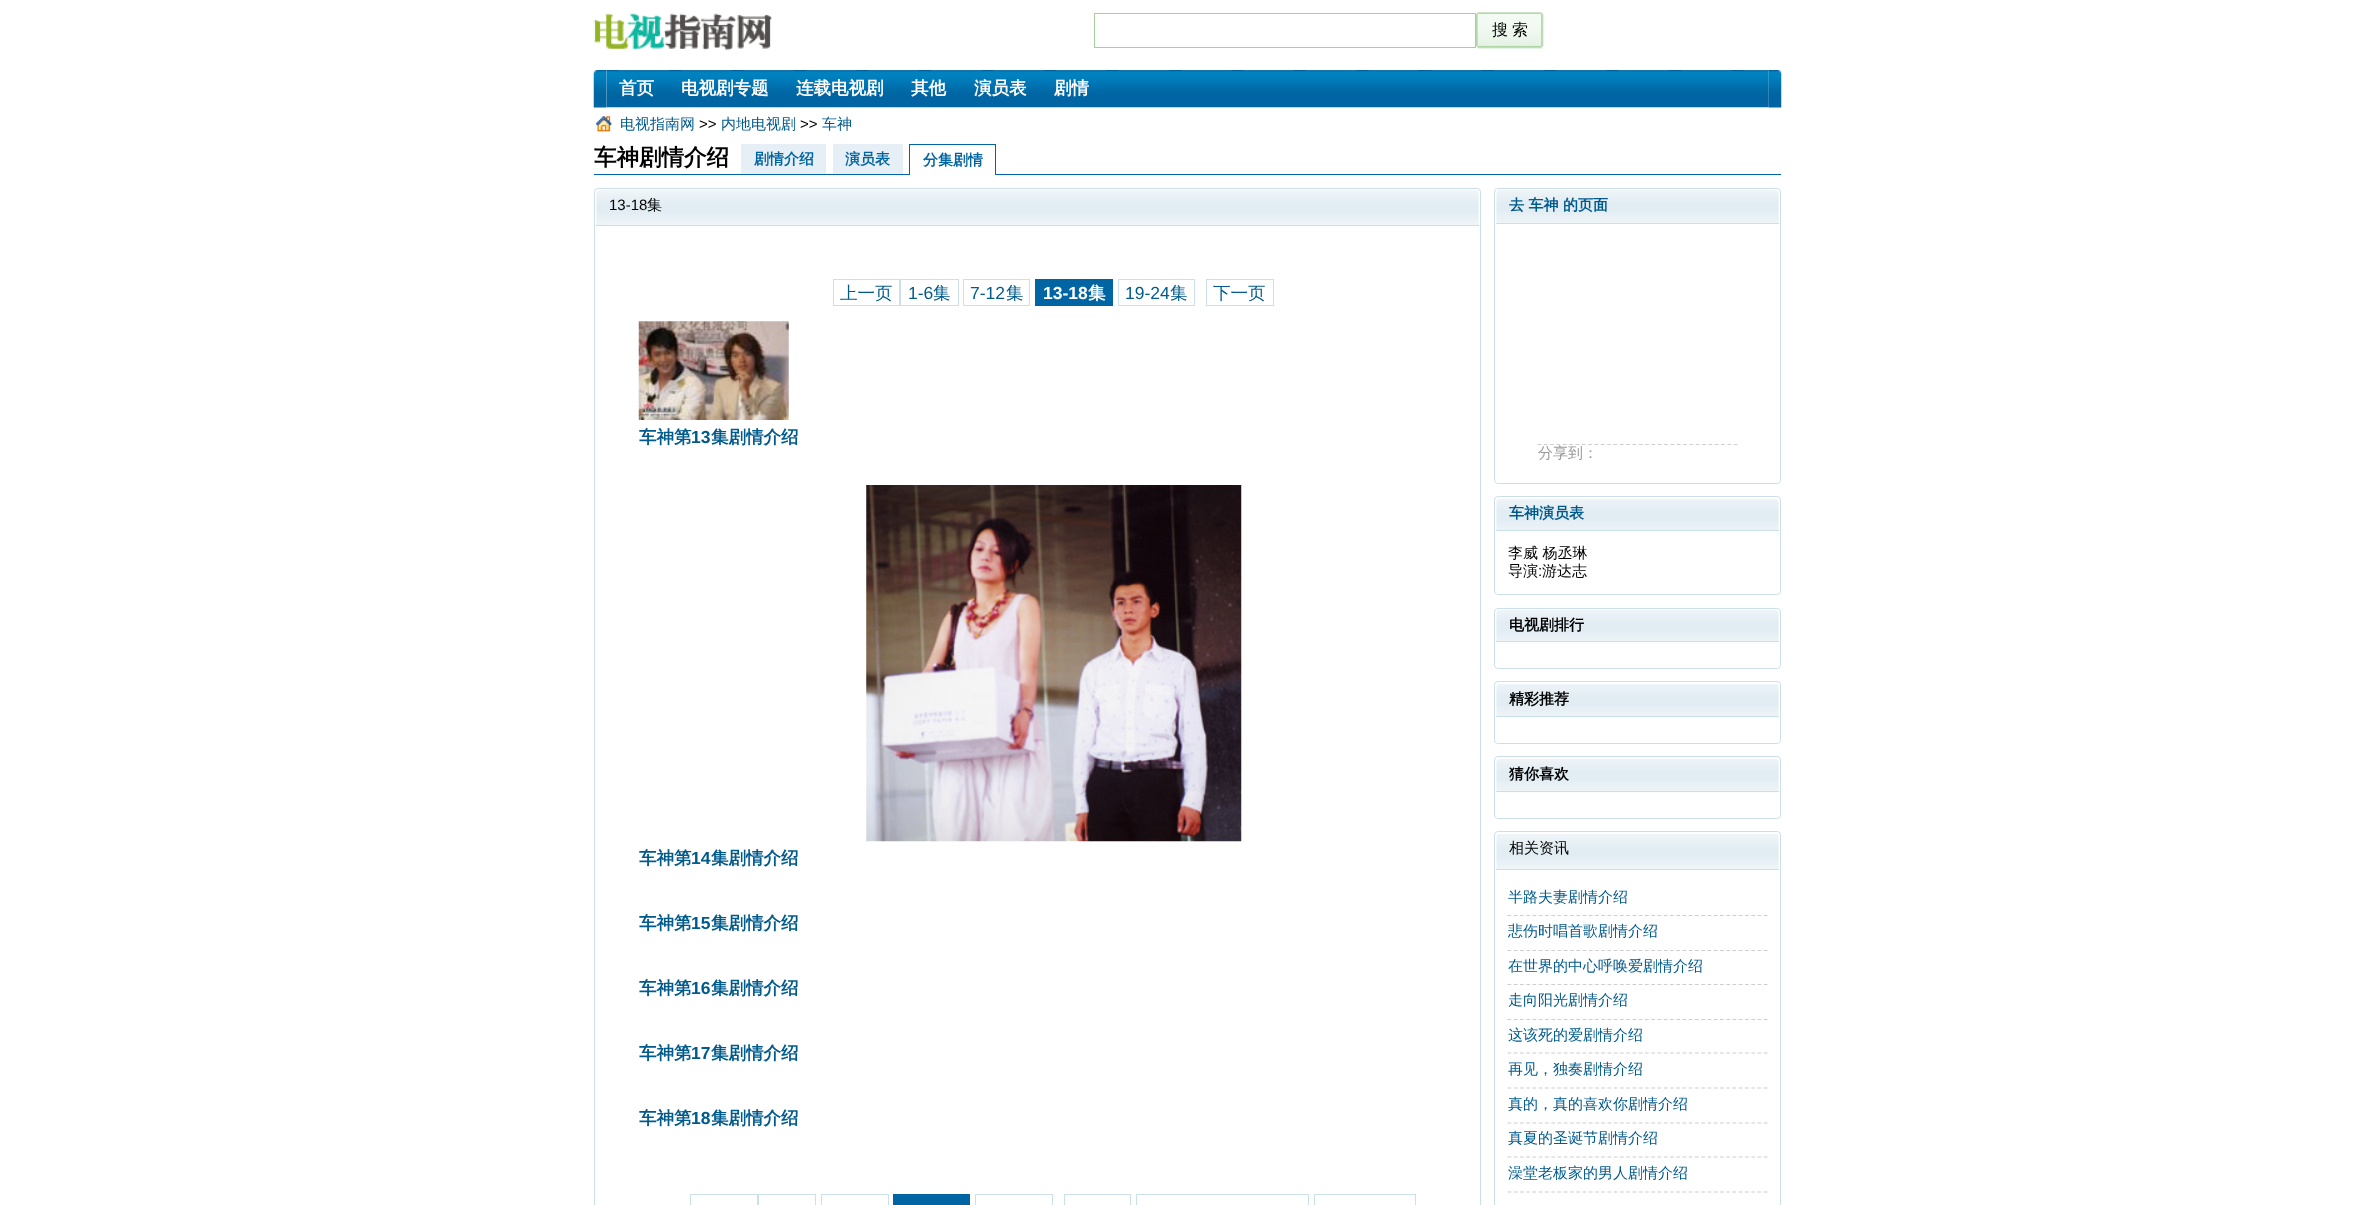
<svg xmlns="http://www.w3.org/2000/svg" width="2374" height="1205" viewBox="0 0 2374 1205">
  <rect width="100%" height="100%" fill="#ffffff"/>
  <image x="593" y="13" width="179" height="38" href="img1.png"/>
  <rect x="1094.5" y="13.5" width="381" height="34" fill="none" stroke="#a6d098"/>
  <image x="1476" y="12" width="68" height="37" href="img2.png"/>
  <text x="1492" y="35" font-family="WenQuanYi Zen Hei" font-size="16" font-weight="500" letter-spacing="4" fill="#000000">搜索</text>
  <image x="593" y="70" width="14" height="38" href="img3.png"/>
  <image x="1768" y="70" width="14" height="38" href="img4.png"/>
  <image x="606" y="70" width="1163" height="38" href="img5.png"/>
  <text x="619" y="94" font-family="WenQuanYi Zen Hei" font-size="17.5" font-weight="bold" fill="#ffffff">首页</text>
  <text x="681" y="94" font-family="WenQuanYi Zen Hei" font-size="17.5" font-weight="bold" fill="#ffffff">电视剧专题</text>
  <text x="796" y="94" font-family="WenQuanYi Zen Hei" font-size="17.5" font-weight="bold" fill="#ffffff">连载电视剧</text>
  <text x="911" y="94" font-family="WenQuanYi Zen Hei" font-size="17.5" font-weight="bold" fill="#ffffff">其他</text>
  <text x="974" y="94" font-family="WenQuanYi Zen Hei" font-size="17.5" font-weight="bold" fill="#ffffff">演员表</text>
  <text x="1054" y="94" font-family="WenQuanYi Zen Hei" font-size="17.5" font-weight="bold" fill="#ffffff">剧情</text>
  <image x="596" y="116" width="16" height="16" href="img6.png"/>
  <text x="620" y="129" font-family="WenQuanYi Zen Hei" font-size="15" font-weight="500" fill="#005a8c">电视指南网</text>
  <text x="699" y="129" font-family="Liberation Sans" font-size="15" fill="#000000">&gt;&gt;</text>
  <text x="721" y="129" font-family="WenQuanYi Zen Hei" font-size="15" font-weight="500" fill="#005a8c">内地电视剧</text>
  <text x="800" y="129" font-family="Liberation Sans" font-size="15" fill="#000000">&gt;&gt;</text>
  <text x="822" y="129" font-family="WenQuanYi Zen Hei" font-size="15" font-weight="500" fill="#005a8c">车神</text>
  <rect x="594" y="174" width="1187" height="1" fill="#0065a2"/>
  <text x="594" y="165" font-family="WenQuanYi Zen Hei" font-size="22.5" font-weight="bold" fill="#000000">车神剧情介绍</text>
  <rect x="741" y="144" width="85" height="30" fill="#e6eff5"/>
  <text x="754" y="164" font-family="WenQuanYi Zen Hei" font-size="15" font-weight="bold" fill="#0065a2">剧情介绍</text>
  <rect x="833" y="144" width="70" height="30" fill="#e6eff5"/>
  <text x="845" y="164" font-family="WenQuanYi Zen Hei" font-size="15" font-weight="bold" fill="#0065a2">演员表</text>
  <rect x="910" y="174" width="85" height="1" fill="#ffffff"/>
  <rect x="909" y="144" width="87" height="1" fill="#0065a2"/>
  <rect x="995" y="144" width="1" height="31" fill="#0065a2"/>
  <rect x="909" y="144" width="1" height="31" fill="#0065a2"/>
  <text x="923" y="165" font-family="WenQuanYi Zen Hei" font-size="15" font-weight="bold" fill="#0065a2">分集剧情</text>
  <rect x="594.5" y="188.5" width="886" height="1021" rx="3.5" fill="none" stroke="#cce0ec"/>
  <image x="596" y="190" width="883" height="35" href="img7.png"/>
  <rect x="596" y="225" width="883" height="1" fill="#cce0ec"/>
  <text x="609" y="210" font-family="Liberation Sans" font-size="15" fill="#000000">13-18</text>
  <text x="647" y="210" font-family="WenQuanYi Zen Hei" font-size="15" font-weight="500" fill="#000000">集</text>
  <rect x="833.5" y="279.5" width="66" height="26" fill="none" stroke="#cce0ec"/>
  <text x="840" y="299" font-family="WenQuanYi Zen Hei" font-size="17.5" font-weight="500" fill="#005a8c">上一页</text>
  <rect x="900.5" y="279.5" width="58" height="26" fill="none" stroke="#cce0ec"/>
  <text x="908" y="299" font-family="Liberation Sans" font-size="17.5" fill="#005a8c">1-6</text>
  <text x="933" y="299" font-family="WenQuanYi Zen Hei" font-size="17.5" font-weight="500" fill="#005a8c">集</text>
  <rect x="963.5" y="279.5" width="66" height="26" fill="none" stroke="#cce0ec"/>
  <text x="970" y="299" font-family="Liberation Sans" font-size="17.5" fill="#005a8c">7-12</text>
  <text x="1006" y="299" font-family="WenQuanYi Zen Hei" font-size="17.5" font-weight="500" fill="#005a8c">集</text>
  <rect x="1035" y="279" width="78" height="27" fill="#0065a2"/>
  <text x="1043" y="299" font-family="Liberation Sans" font-size="17.5" font-weight="bold" fill="#ffffff">13-18</text>
  <text x="1088" y="299" font-family="WenQuanYi Zen Hei" font-size="17.5" font-weight="bold" fill="#ffffff">集</text>
  <rect x="1118.5" y="279.5" width="76" height="26" fill="none" stroke="#cce0ec"/>
  <text x="1125" y="299" font-family="Liberation Sans" font-size="17.5" fill="#005a8c">19-24</text>
  <text x="1170" y="299" font-family="WenQuanYi Zen Hei" font-size="17.5" font-weight="500" fill="#005a8c">集</text>
  <rect x="1206.5" y="279.5" width="67" height="26" fill="none" stroke="#cce0ec"/>
  <text x="1213" y="299" font-family="WenQuanYi Zen Hei" font-size="17.5" font-weight="500" fill="#005a8c">下一页</text>
  <image x="638" y="321" width="151" height="99" href="img8.png"/>
  <text x="639" y="443" font-family="WenQuanYi Zen Hei" font-size="17.5" font-weight="bold" fill="#005a8c">车神第</text>
  <text x="691" y="443" font-family="Liberation Sans" font-size="17.5" font-weight="bold" fill="#005a8c">13</text>
  <text x="711" y="443" font-family="WenQuanYi Zen Hei" font-size="17.5" font-weight="bold" fill="#005a8c">集剧情介绍</text>
  <image x="866" y="485" width="376" height="357" href="img9.png"/>
  <text x="639" y="864" font-family="WenQuanYi Zen Hei" font-size="17.5" font-weight="bold" fill="#005a8c">车神第</text>
  <text x="691" y="864" font-family="Liberation Sans" font-size="17.5" font-weight="bold" fill="#005a8c">14</text>
  <text x="711" y="864" font-family="WenQuanYi Zen Hei" font-size="17.5" font-weight="bold" fill="#005a8c">集剧情介绍</text>
  <text x="639" y="929" font-family="WenQuanYi Zen Hei" font-size="17.5" font-weight="bold" fill="#005a8c">车神第</text>
  <text x="691" y="929" font-family="Liberation Sans" font-size="17.5" font-weight="bold" fill="#005a8c">15</text>
  <text x="711" y="929" font-family="WenQuanYi Zen Hei" font-size="17.5" font-weight="bold" fill="#005a8c">集剧情介绍</text>
  <text x="639" y="994" font-family="WenQuanYi Zen Hei" font-size="17.5" font-weight="bold" fill="#005a8c">车神第</text>
  <text x="691" y="994" font-family="Liberation Sans" font-size="17.5" font-weight="bold" fill="#005a8c">16</text>
  <text x="711" y="994" font-family="WenQuanYi Zen Hei" font-size="17.5" font-weight="bold" fill="#005a8c">集剧情介绍</text>
  <text x="639" y="1059" font-family="WenQuanYi Zen Hei" font-size="17.5" font-weight="bold" fill="#005a8c">车神第</text>
  <text x="691" y="1059" font-family="Liberation Sans" font-size="17.5" font-weight="bold" fill="#005a8c">17</text>
  <text x="711" y="1059" font-family="WenQuanYi Zen Hei" font-size="17.5" font-weight="bold" fill="#005a8c">集剧情介绍</text>
  <text x="639" y="1124" font-family="WenQuanYi Zen Hei" font-size="17.5" font-weight="bold" fill="#005a8c">车神第</text>
  <text x="691" y="1124" font-family="Liberation Sans" font-size="17.5" font-weight="bold" fill="#005a8c">18</text>
  <text x="711" y="1124" font-family="WenQuanYi Zen Hei" font-size="17.5" font-weight="bold" fill="#005a8c">集剧情介绍</text>
  <rect x="690.5" y="1194.5" width="67" height="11" fill="none" stroke="#cce0ec"/>
  <rect x="758.5" y="1194.5" width="57" height="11" fill="none" stroke="#cce0ec"/>
  <rect x="821.5" y="1194.5" width="67" height="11" fill="none" stroke="#cce0ec"/>
  <rect x="893" y="1194" width="77" height="11" fill="#0065a2"/>
  <rect x="975.5" y="1194.5" width="77" height="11" fill="none" stroke="#cce0ec"/>
  <rect x="1064.5" y="1194.5" width="66" height="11" fill="none" stroke="#cce0ec"/>
  <rect x="1136.5" y="1194.5" width="172" height="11" fill="none" stroke="#cce0ec"/>
  <rect x="1314.5" y="1194.5" width="101" height="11" fill="none" stroke="#cce0ec"/>
  <rect x="1494.5" y="188.5" width="286" height="295" rx="3.5" fill="none" stroke="#cce0ec"/>
  <image x="1496" y="190" width="283" height="33" href="img10.png"/>
  <rect x="1496" y="223" width="283" height="1" fill="#cce0ec"/>
  <text x="1509" y="210" font-family="WenQuanYi Zen Hei" font-size="15" font-weight="bold" fill="#005a8c">去 车神 的页面</text>
  <path d="M1495 224H1780V479C1780 481 1778 483 1776 483H1499C1497 483 1495 481 1495 479Z" fill="#ffffff"/>
  <text x="1538" y="458" font-family="WenQuanYi Zen Hei" font-size="15" font-weight="500" fill="#999999">分享到：</text>
  <path d="M1537.5 444.5H1737.5" fill="none" stroke="#cecece" stroke-width="1.2" stroke-dasharray="3.75 2.58"/>
  <rect x="1494.5" y="496.5" width="286" height="98" rx="3.5" fill="none" stroke="#cce0ec"/>
  <image x="1496" y="499" width="283" height="31" href="img11.png"/>
  <rect x="1496" y="530" width="283" height="1" fill="#cce0ec"/>
  <text x="1509" y="518" font-family="WenQuanYi Zen Hei" font-size="15" font-weight="bold" fill="#005a8c">车神演员表</text>
  <path d="M1495 531H1780V590C1780 592 1778 594 1776 594H1499C1497 594 1495 592 1495 590Z" fill="#ffffff"/>
  <text x="1508" y="558" font-family="WenQuanYi Zen Hei" font-size="15" font-weight="500" fill="#000000">李威 杨丞琳</text>
  <text x="1508" y="576" font-family="WenQuanYi Zen Hei" font-size="15" font-weight="500" fill="#000000">导演</text>
  <text x="1538" y="576" font-family="Liberation Sans" font-size="15" fill="#000000">:</text>
  <text x="1542" y="576" font-family="WenQuanYi Zen Hei" font-size="15" font-weight="500" fill="#000000">游达志</text>
  <rect x="1494.5" y="608.5" width="286" height="60" rx="3.5" fill="none" stroke="#cce0ec"/>
  <image x="1496" y="610" width="283" height="33" href="img12.png"/>
  <rect x="1496" y="641" width="283" height="1" fill="#cce0ec"/>
  <text x="1509" y="630" font-family="WenQuanYi Zen Hei" font-size="15" font-weight="bold" fill="#000000">电视剧排行</text>
  <path d="M1495 643H1780V664C1780 666 1778 668 1776 668H1499C1497 668 1495 666 1495 664Z" fill="#ffffff"/>
  <rect x="1494.5" y="681.5" width="286" height="62" rx="3.5" fill="none" stroke="#cce0ec"/>
  <image x="1496" y="684" width="283" height="34" href="img13.png"/>
  <rect x="1496" y="716" width="283" height="1" fill="#cce0ec"/>
  <text x="1509" y="704" font-family="WenQuanYi Zen Hei" font-size="15" font-weight="bold" fill="#000000">精彩推荐</text>
  <path d="M1495 718H1780V739C1780 741 1778 743 1776 743H1499C1497 743 1495 741 1495 739Z" fill="#ffffff"/>
  <rect x="1494.5" y="756.5" width="286" height="62" rx="3.5" fill="none" stroke="#cce0ec"/>
  <image x="1496" y="759" width="283" height="34" href="img13.png"/>
  <rect x="1496" y="791" width="283" height="1" fill="#cce0ec"/>
  <text x="1509" y="779" font-family="WenQuanYi Zen Hei" font-size="15" font-weight="bold" fill="#000000">猜你喜欢</text>
  <path d="M1495 793H1780V814C1780 816 1778 818 1776 818H1499C1497 818 1495 816 1495 814Z" fill="#ffffff"/>
  <rect x="1494.5" y="831.5" width="286" height="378" rx="3.5" fill="none" stroke="#cce0ec"/>
  <image x="1496" y="834" width="283" height="35" href="img14.png"/>
  <rect x="1496" y="869" width="283" height="1" fill="#cce0ec"/>
  <text x="1509" y="853" font-family="WenQuanYi Zen Hei" font-size="15" font-weight="500" fill="#000000">相关资讯</text>
  <text x="1508" y="902" font-family="WenQuanYi Zen Hei" font-size="15" font-weight="500" fill="#005a8c">半路夫妻剧情介绍</text>
  <path d="M1507.5 915.5H1767.5" fill="none" stroke="#cecece" stroke-width="1.2" stroke-dasharray="3.75 2.5"/>
  <text x="1508" y="936" font-family="WenQuanYi Zen Hei" font-size="15" font-weight="500" fill="#005a8c">悲伤时唱首歌剧情介绍</text>
  <path d="M1507.5 950.5H1767.5" fill="none" stroke="#cecece" stroke-width="1.2" stroke-dasharray="3.75 2.5"/>
  <text x="1508" y="971" font-family="WenQuanYi Zen Hei" font-size="15" font-weight="500" fill="#005a8c">在世界的中心呼唤爱剧情介绍</text>
  <path d="M1507.5 984.5H1767.5" fill="none" stroke="#cecece" stroke-width="1.2" stroke-dasharray="3.75 2.5"/>
  <text x="1508" y="1005" font-family="WenQuanYi Zen Hei" font-size="15" font-weight="500" fill="#005a8c">走向阳光剧情介绍</text>
  <path d="M1507.5 1019.5H1767.5" fill="none" stroke="#cecece" stroke-width="1.2" stroke-dasharray="3.75 2.5"/>
  <text x="1508" y="1040" font-family="WenQuanYi Zen Hei" font-size="15" font-weight="500" fill="#005a8c">这该死的爱剧情介绍</text>
  <path d="M1507.5 1053H1767.5" fill="none" stroke="#cecece" stroke-width="1.2" stroke-dasharray="3.75 2.5"/>
  <text x="1508" y="1074" font-family="WenQuanYi Zen Hei" font-size="15" font-weight="500" fill="#005a8c">再见，独奏剧情介绍</text>
  <path d="M1507.5 1088H1767.5" fill="none" stroke="#cecece" stroke-width="1.2" stroke-dasharray="3.75 2.5"/>
  <text x="1508" y="1109" font-family="WenQuanYi Zen Hei" font-size="15" font-weight="500" fill="#005a8c">真的，真的喜欢你剧情介绍</text>
  <path d="M1507.5 1123H1767.5" fill="none" stroke="#cecece" stroke-width="1.2" stroke-dasharray="3.75 2.5"/>
  <text x="1508" y="1143" font-family="WenQuanYi Zen Hei" font-size="15" font-weight="500" fill="#005a8c">真夏的圣诞节剧情介绍</text>
  <path d="M1507.5 1157H1767.5" fill="none" stroke="#cecece" stroke-width="1.2" stroke-dasharray="3.75 2.5"/>
  <text x="1508" y="1178" font-family="WenQuanYi Zen Hei" font-size="15" font-weight="500" fill="#005a8c">澡堂老板家的男人剧情介绍</text>
  <path d="M1507.5 1192H1767.5" fill="none" stroke="#cecece" stroke-width="1.2" stroke-dasharray="3.75 2.5"/>
</svg>
